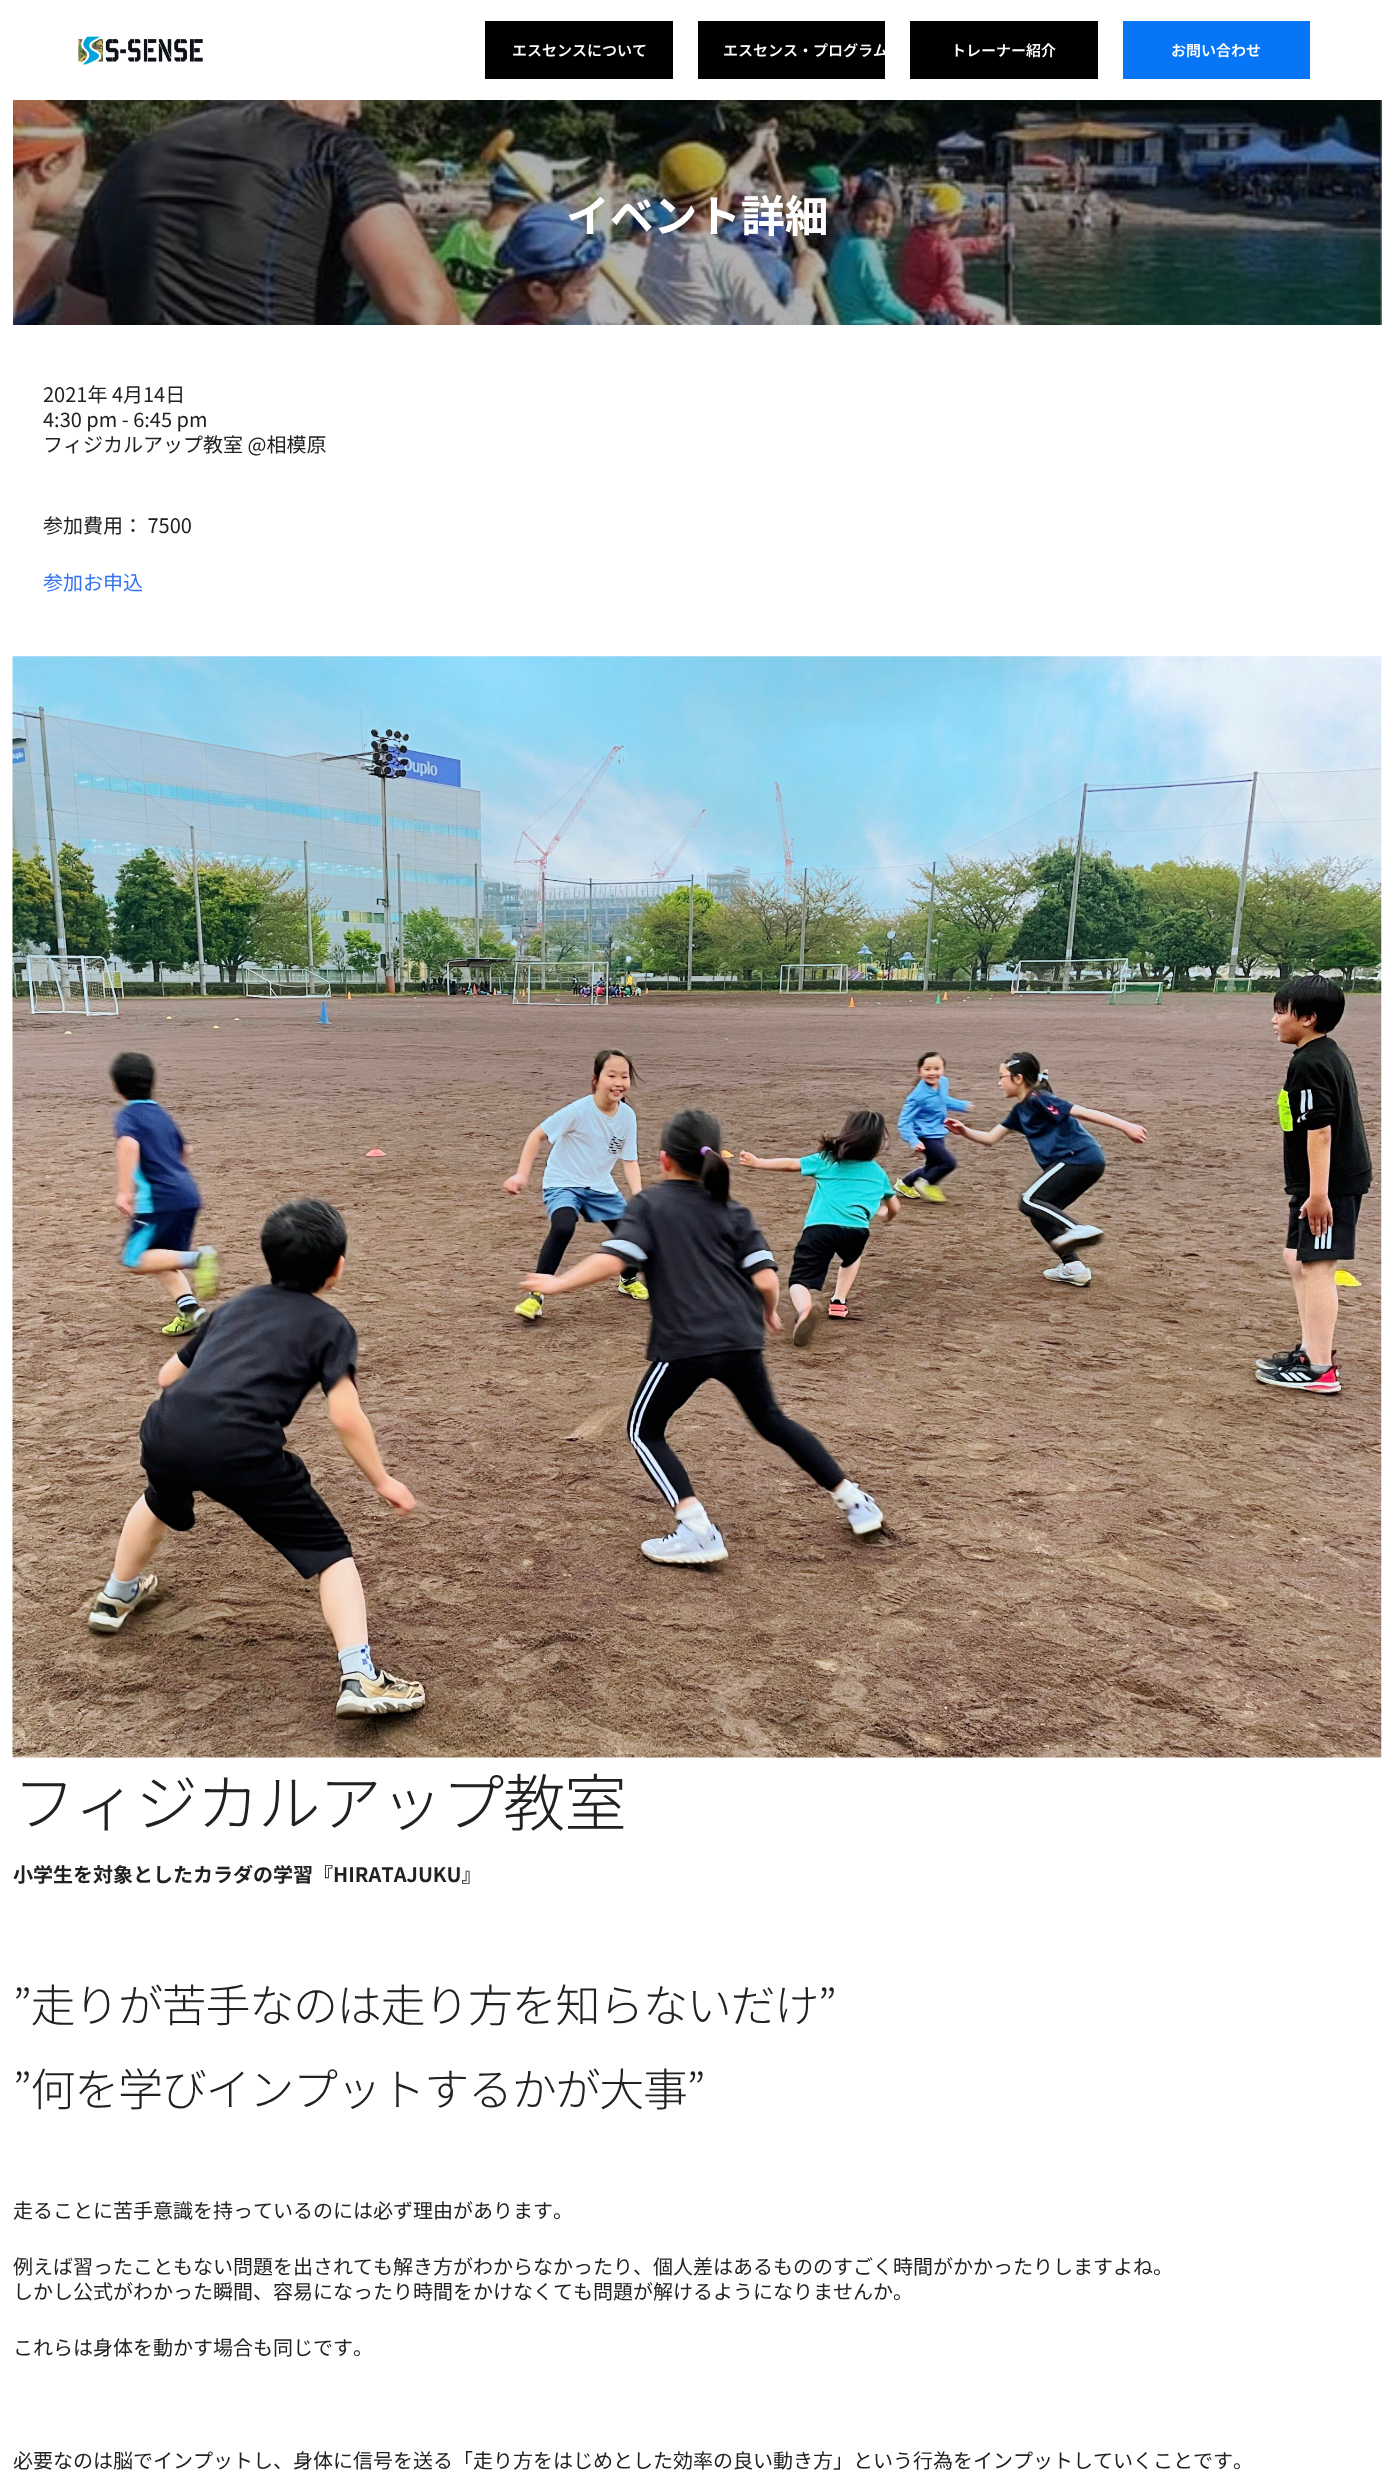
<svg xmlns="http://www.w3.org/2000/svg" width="1393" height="2475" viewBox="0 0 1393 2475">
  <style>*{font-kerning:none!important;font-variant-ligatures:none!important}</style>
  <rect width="100%" height="100%" fill="#ffffff"/>
  <image x="78" y="36" width="125" height="29" href="img1.png"/>
  <rect x="485" y="21" width="188" height="58" fill="#000000"/>
  <text x="512" y="56" font-family="Noto Sans JP" font-size="15" font-weight="600" fill="#ffffff">エスセンスについて</text>
  <rect x="698" y="21" width="187" height="58" fill="#000000"/>
  <text x="723" y="56" font-family="Noto Sans JP" font-size="15" font-weight="600" fill="#ffffff">エスセンス・プログラム</text>
  <rect x="910" y="21" width="188" height="58" fill="#000000"/>
  <text x="951" y="56" font-family="Noto Sans JP" font-size="15" font-weight="600" fill="#ffffff">トレーナー紹介</text>
  <rect x="1123" y="21" width="187" height="58" fill="#0776f6"/>
  <text x="1171" y="56" font-family="Noto Sans JP" font-size="15" font-weight="600" fill="#ffffff">お問い合わせ</text>
  <image x="13" y="100" width="1369" height="225" href="img2.png"/>
  <text x="566" y="232" font-family="Noto Sans JP" font-size="43.75" font-weight="bold" fill="#ffffff">イベント詳細</text>
  <text x="43" y="402" font-family="Noto Sans JP" font-size="20" fill="#212121">2021年 4月14日</text>
  <text x="43" y="427" font-family="Noto Sans JP" font-size="20" fill="#212121">4:30 pm - 6:45 pm</text>
  <text x="43" y="452" font-family="Noto Sans JP" font-size="20" fill="#212121">フィジカルアップ教室 @相模原</text>
  <text x="43" y="533" font-family="Noto Sans JP" font-size="20" fill="#212121">参加費用： 7500</text>
  <text x="43" y="590" font-family="Noto Sans JP" font-size="20" fill="#3372f0">参加お申込</text>
  <image x="12" y="656" width="1370" height="1102" href="img3.png"/>
  <text x="13" y="1826" font-family="Noto Sans JP" font-size="62.5" font-weight="300" letter-spacing="-1.25" fill="#212121">フィジカルアップ教室</text>
  <text x="13" y="1882" font-family="Noto Sans JP" font-size="20" font-weight="bold" fill="#212121">小学生を対象としたカラダの学習『HIRATAJUKU』</text>
  <text x="13" y="2022" font-family="Noto Sans JP" font-size="45" font-weight="300" letter-spacing="-1.25" fill="#212121">”走りが苦手なのは走り方を知らないだけ”</text>
  <text x="13" y="2106" font-family="Noto Sans JP" font-size="45" font-weight="300" letter-spacing="-1.25" fill="#212121">”何を学びインプットするかが大事”</text>
  <text x="13" y="2218" font-family="Noto Sans JP" font-size="20" fill="#212121">走ることに苦手意識を持っているのには必ず理由があります。</text>
  <text x="13" y="2274" font-family="Noto Sans JP" font-size="20" fill="#212121">例えば習ったこともない問題を出されても解き方がわからなかったり、個人差はあるもののすごく時間がかかったりしますよね。</text>
  <text x="13" y="2299" font-family="Noto Sans JP" font-size="20" fill="#212121">しかし公式がわかった瞬間、容易になったり時間をかけなくても問題が解けるようになりませんか。</text>
  <text x="13" y="2355" font-family="Noto Sans JP" font-size="20" fill="#212121">これらは身体を動かす場合も同じです。</text>
  <text x="13" y="2468" font-family="Noto Sans JP" font-size="20" fill="#212121">必要なのは脳でインプットし、身体に信号を送る「走り方をはじめとした効率の良い動き方」という行為をインプットしていくことです。</text>
</svg>
